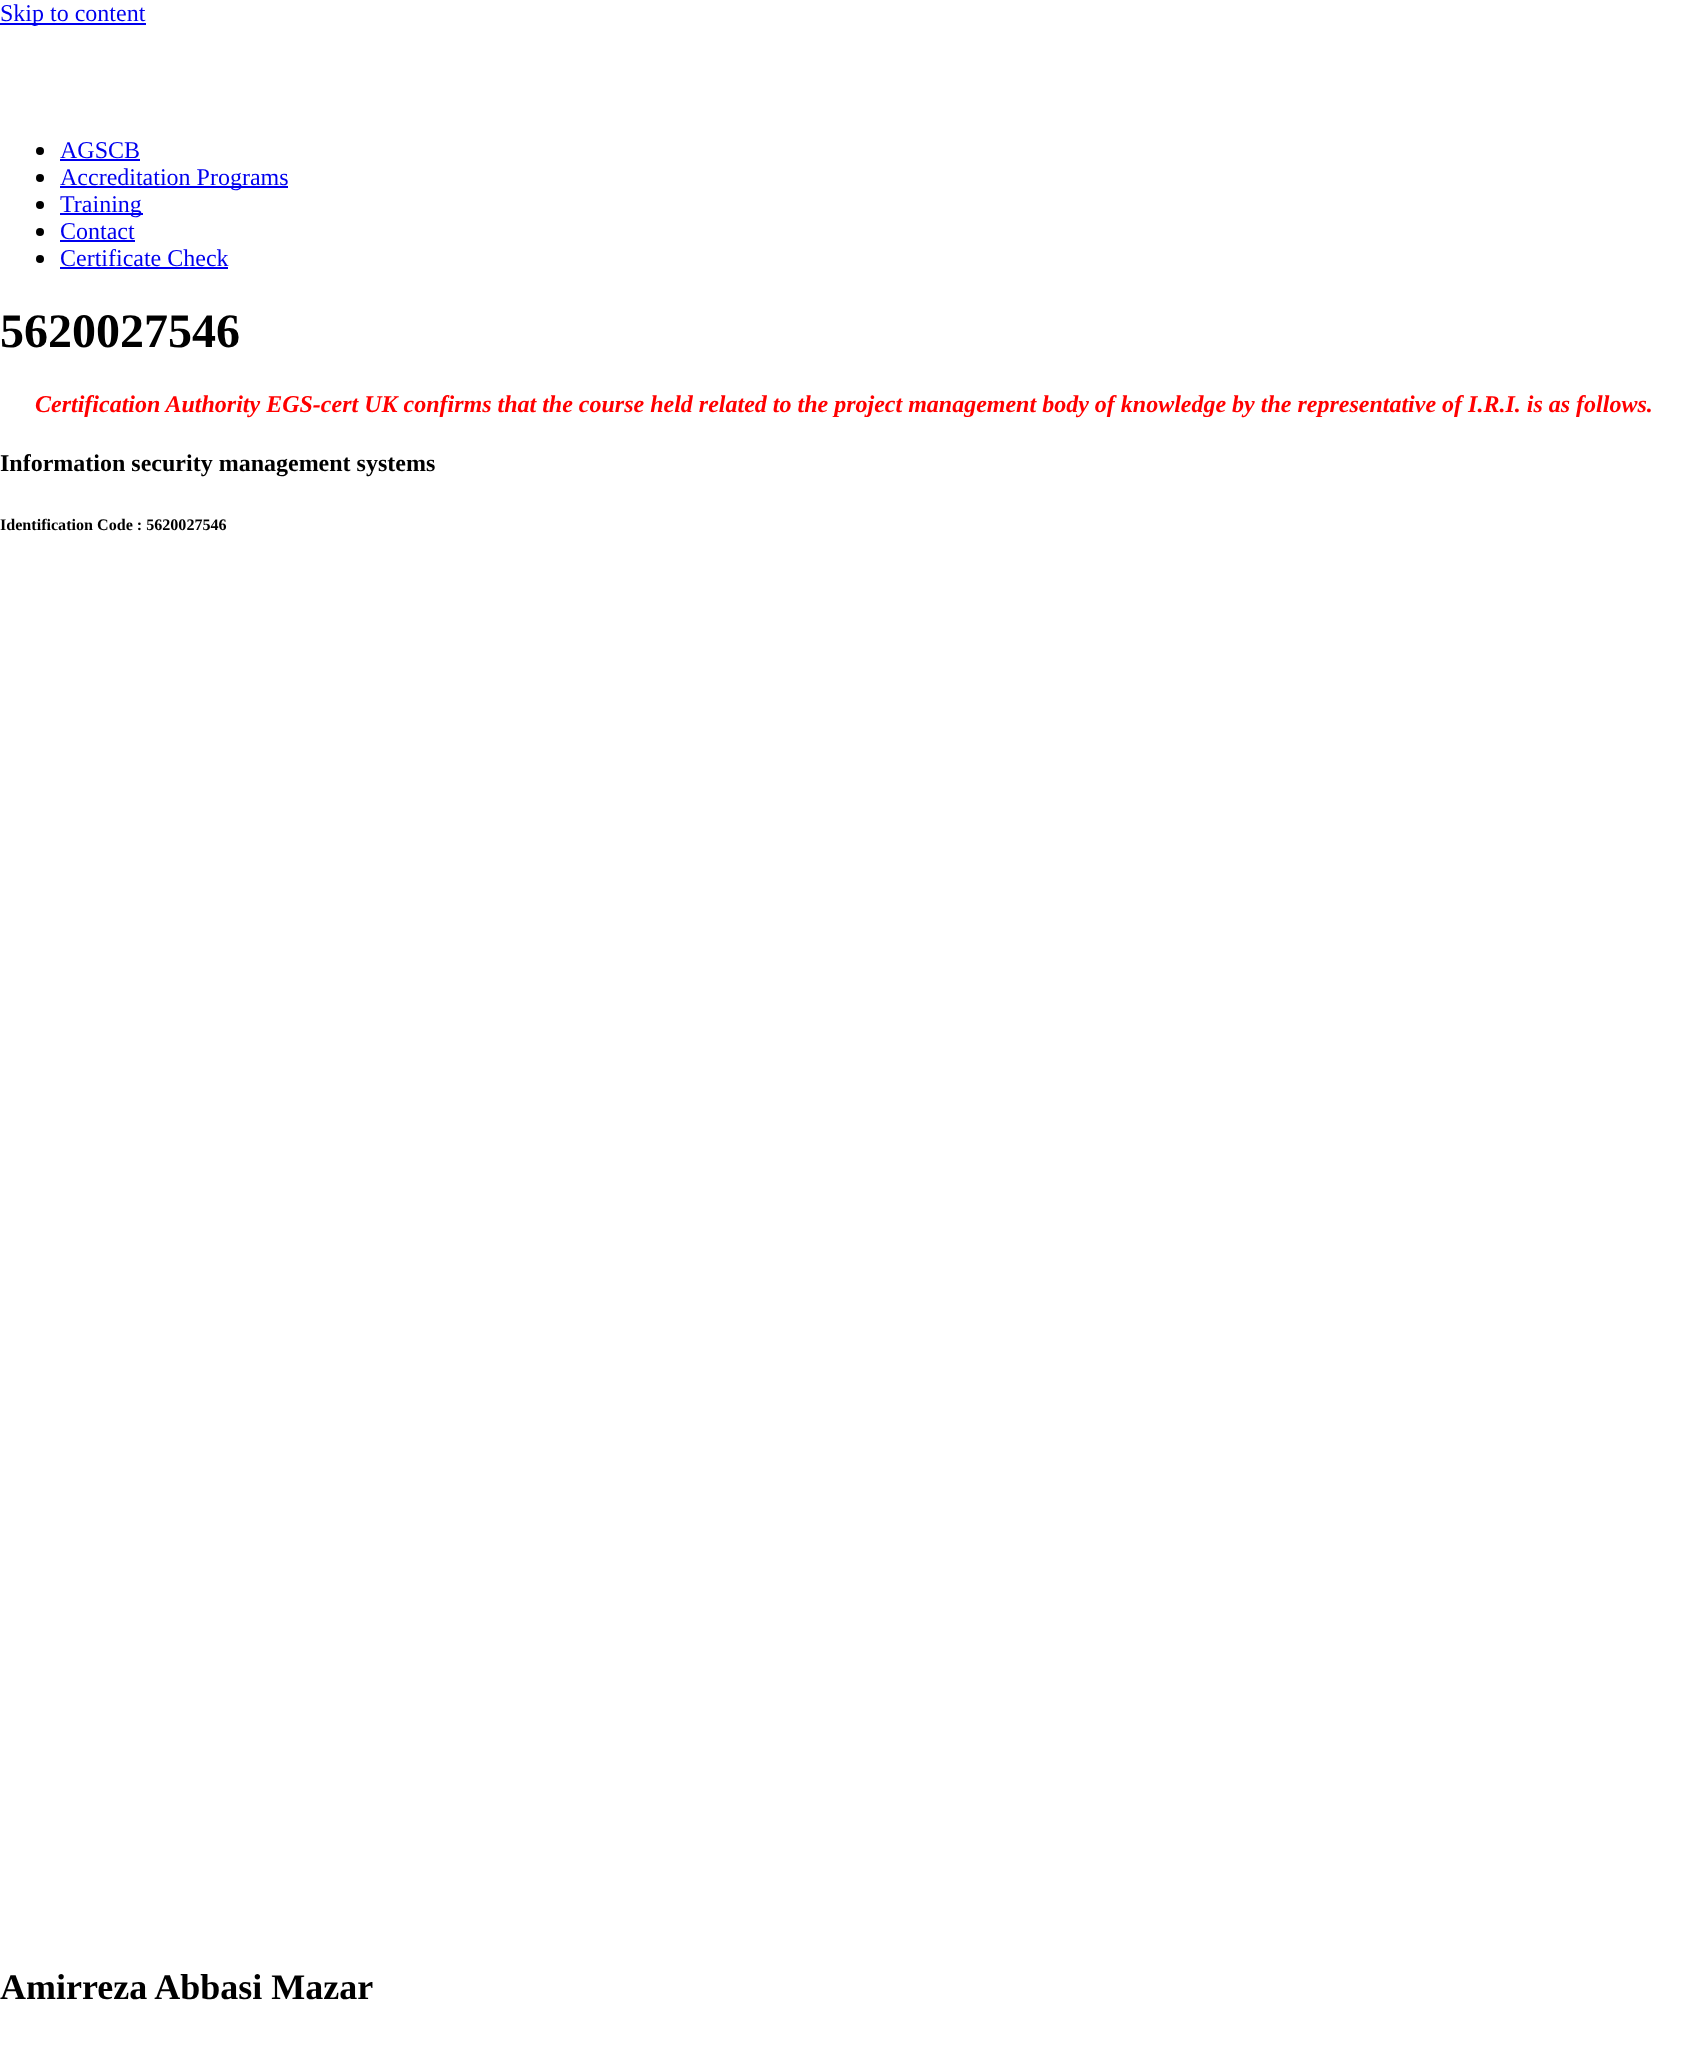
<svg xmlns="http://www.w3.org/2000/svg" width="1687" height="2045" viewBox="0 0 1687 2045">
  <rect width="100%" height="100%" fill="#ffffff"/>
  <rect x="0" y="23" width="146" height="2" fill="#0000ee"/>
  <text x="0" y="21" font-family="Liberation Serif" font-size="24" fill="#0000ee">Skip to content</text>
  <circle cx="40" cy="151" r="4" fill="#000000"/>
  <text x="60" y="158" font-family="Liberation Serif" font-size="24" fill="#0000ee">AGSCB</text>
  <rect x="60" y="159" width="80" height="2" fill="#0000ee"/>
  <circle cx="40" cy="178" r="4" fill="#000000"/>
  <rect x="60" y="186" width="228" height="2" fill="#0000ee"/>
  <text x="60" y="185" font-family="Liberation Serif" font-size="24" fill="#0000ee">Accreditation Programs</text>
  <circle cx="40" cy="205" r="4" fill="#000000"/>
  <rect x="60" y="213" width="83" height="2" fill="#0000ee"/>
  <text x="60" y="212" font-family="Liberation Serif" font-size="24" fill="#0000ee">Training</text>
  <circle cx="40" cy="232" r="4" fill="#000000"/>
  <text x="60" y="239" font-family="Liberation Serif" font-size="24" fill="#0000ee">Contact</text>
  <rect x="60" y="240" width="75" height="2" fill="#0000ee"/>
  <circle cx="40" cy="259" r="4" fill="#000000"/>
  <text x="60" y="266" font-family="Liberation Serif" font-size="24" fill="#0000ee">Certificate Check</text>
  <rect x="60" y="267" width="168" height="2" fill="#0000ee"/>
  <text x="0" y="347" font-family="Liberation Serif" font-size="48" font-weight="bold" fill="#000000">5620027546</text>
  <text x="35" y="412" font-family="Liberation Serif" font-size="24" font-weight="bold" font-style="italic" fill="#ff0000">Certification Authority EGS-cert UK confirms that the course held related to the project management body of knowledge by the representative of I.R.I. is as follows.</text>
  <text x="0" y="471" font-family="Liberation Serif" font-size="24" font-weight="bold" fill="#000000">Information security management systems</text>
  <text x="0" y="530" font-family="Liberation Serif" font-size="16.1" font-weight="bold" fill="#000000">Identification Code : 5620027546</text>
  <text x="0" y="1999" font-family="Liberation Serif" font-size="36" font-weight="bold" fill="#000000">Amirreza Abbasi Mazar</text>
</svg>
